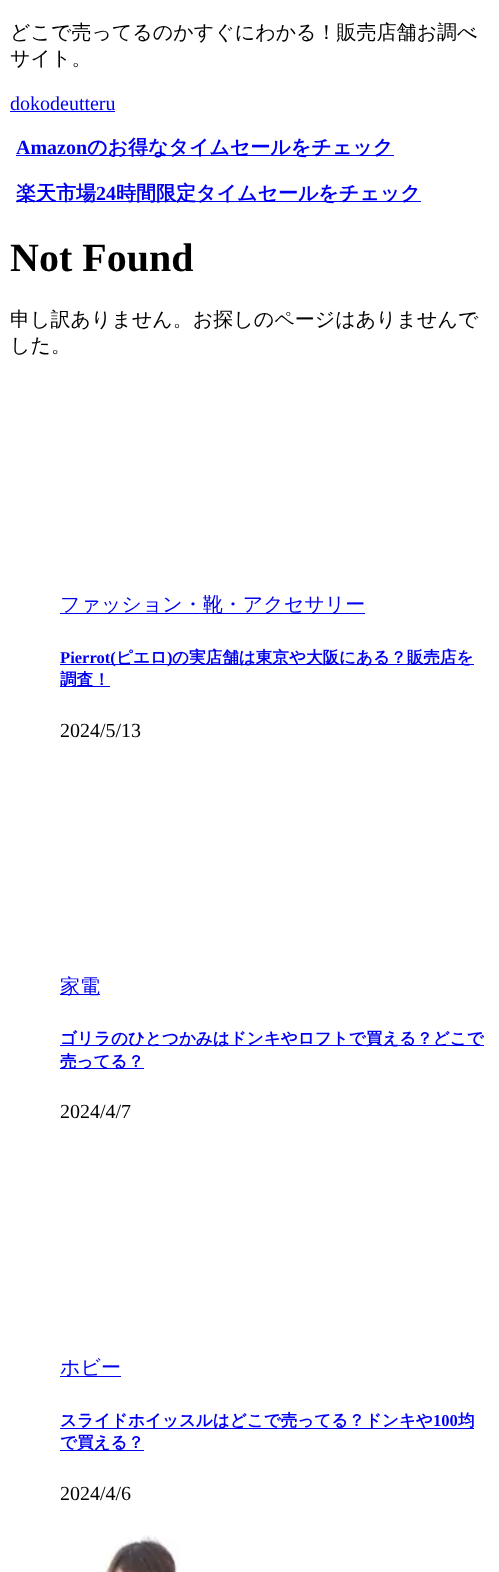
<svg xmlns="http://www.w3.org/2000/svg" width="499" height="1572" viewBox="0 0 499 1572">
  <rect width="100%" height="100%" fill="#ffffff"/>
  <text x="10" y="39" font-family="WenQuanYi Zen Hei" font-size="20" font-weight="500" fill="#000000">どこで売ってるのかすぐにわかる！販売店舗お調べ</text>
  <text x="10" y="65" font-family="WenQuanYi Zen Hei" font-size="20" font-weight="500" fill="#000000">サイト。</text>
  <text x="10" y="110" font-family="Liberation Serif" font-size="20" fill="#0000ee">dokodeutteru</text>
  <rect x="10" y="111" width="105" height="1" fill="#0000ee"/>
  <text x="16" y="154" font-family="Liberation Serif" font-size="20" font-weight="bold" fill="#0000ee">Amazon</text>
  <rect x="16" y="155" width="378" height="1" fill="#0000ee"/>
  <text x="87" y="154" font-family="WenQuanYi Zen Hei" font-size="20" font-weight="bold" fill="#0000ee">のお得なタイムセールをチェック</text>
  <rect x="16" y="201" width="405" height="1" fill="#0000ee"/>
  <text x="16" y="200" font-family="WenQuanYi Zen Hei" font-size="20" font-weight="bold" fill="#0000ee">楽天市場</text>
  <text x="96" y="200" font-family="Liberation Serif" font-size="20" font-weight="bold" fill="#0000ee">24</text>
  <text x="116" y="200" font-family="WenQuanYi Zen Hei" font-size="20" font-weight="bold" fill="#0000ee">時間限定タイムセールをチェック</text>
  <text x="10" y="271" font-family="Liberation Serif" font-size="40" font-weight="bold" fill="#000000">Not Found</text>
  <text x="10" y="326" font-family="WenQuanYi Zen Hei" font-size="20" font-weight="500" fill="#000000">申し訳ありません。お探しのページはありませんで</text>
  <text x="10" y="352" font-family="WenQuanYi Zen Hei" font-size="20" font-weight="500" fill="#000000">した。</text>
  <rect x="60" y="613" width="305" height="1" fill="#0000ee"/>
  <text x="60" y="611" font-family="WenQuanYi Zen Hei" font-size="20" font-weight="500" fill="#0000ee">ファッション・靴・アクセサリー</text>
  <rect x="60" y="664" width="414" height="1" fill="#0000ee"/>
  <text x="60" y="663" font-family="Liberation Serif" font-size="16.6" font-weight="bold" fill="#0000ee">Pierrot(</text>
  <text x="116" y="663" font-family="WenQuanYi Zen Hei" font-size="16.6" font-weight="bold" fill="#0000ee">ピエロ</text>
  <text x="167" y="663" font-family="Liberation Serif" font-size="16.6" font-weight="bold" fill="#0000ee">)</text>
  <text x="172" y="663" font-family="WenQuanYi Zen Hei" font-size="16.6" font-weight="bold" fill="#0000ee">の実店舗は東京や大阪にある？販売店を</text>
  <rect x="60" y="686" width="50" height="1" fill="#0000ee"/>
  <text x="60" y="685" font-family="WenQuanYi Zen Hei" font-size="16.6" font-weight="bold" fill="#0000ee">調査！</text>
  <text x="60" y="737" font-family="Liberation Serif" font-size="20" fill="#000000">2024/5/13</text>
  <rect x="60" y="994" width="40" height="1" fill="#0000ee"/>
  <text x="60" y="993" font-family="WenQuanYi Zen Hei" font-size="20" font-weight="500" fill="#0000ee">家電</text>
  <rect x="60" y="1045" width="424" height="1" fill="#0000ee"/>
  <text x="60" y="1044" font-family="WenQuanYi Zen Hei" font-size="16.6" font-weight="bold" fill="#0000ee">ゴリラのひとつかみはドンキやロフトで買える？どこで</text>
  <rect x="60" y="1068" width="84" height="1" fill="#0000ee"/>
  <text x="60" y="1067" font-family="WenQuanYi Zen Hei" font-size="16.6" font-weight="bold" fill="#0000ee">売ってる？</text>
  <text x="60" y="1118" font-family="Liberation Serif" font-size="20" fill="#000000">2024/4/7</text>
  <rect x="60" y="1376" width="61" height="1" fill="#0000ee"/>
  <text x="60" y="1374" font-family="WenQuanYi Zen Hei" font-size="20" font-weight="500" fill="#0000ee">ホビー</text>
  <rect x="60" y="1428" width="414" height="1" fill="#0000ee"/>
  <text x="60" y="1426" font-family="WenQuanYi Zen Hei" font-size="16.6" font-weight="bold" fill="#0000ee">スライドホイッスルはどこで売ってる？ドンキや</text>
  <text x="433" y="1426" font-family="Liberation Serif" font-size="16.6" font-weight="bold" fill="#0000ee">100</text>
  <text x="458" y="1426" font-family="WenQuanYi Zen Hei" font-size="16.6" font-weight="bold" fill="#0000ee">均</text>
  <rect x="60" y="1450" width="84" height="1" fill="#0000ee"/>
  <text x="60" y="1448" font-family="WenQuanYi Zen Hei" font-size="16.6" font-weight="bold" fill="#0000ee">で買える？</text>
  <text x="60" y="1500" font-family="Liberation Serif" font-size="20" fill="#000000">2024/4/6</text>
  <image x="100" y="1535" width="80" height="37" href="img1.png"/>
</svg>
